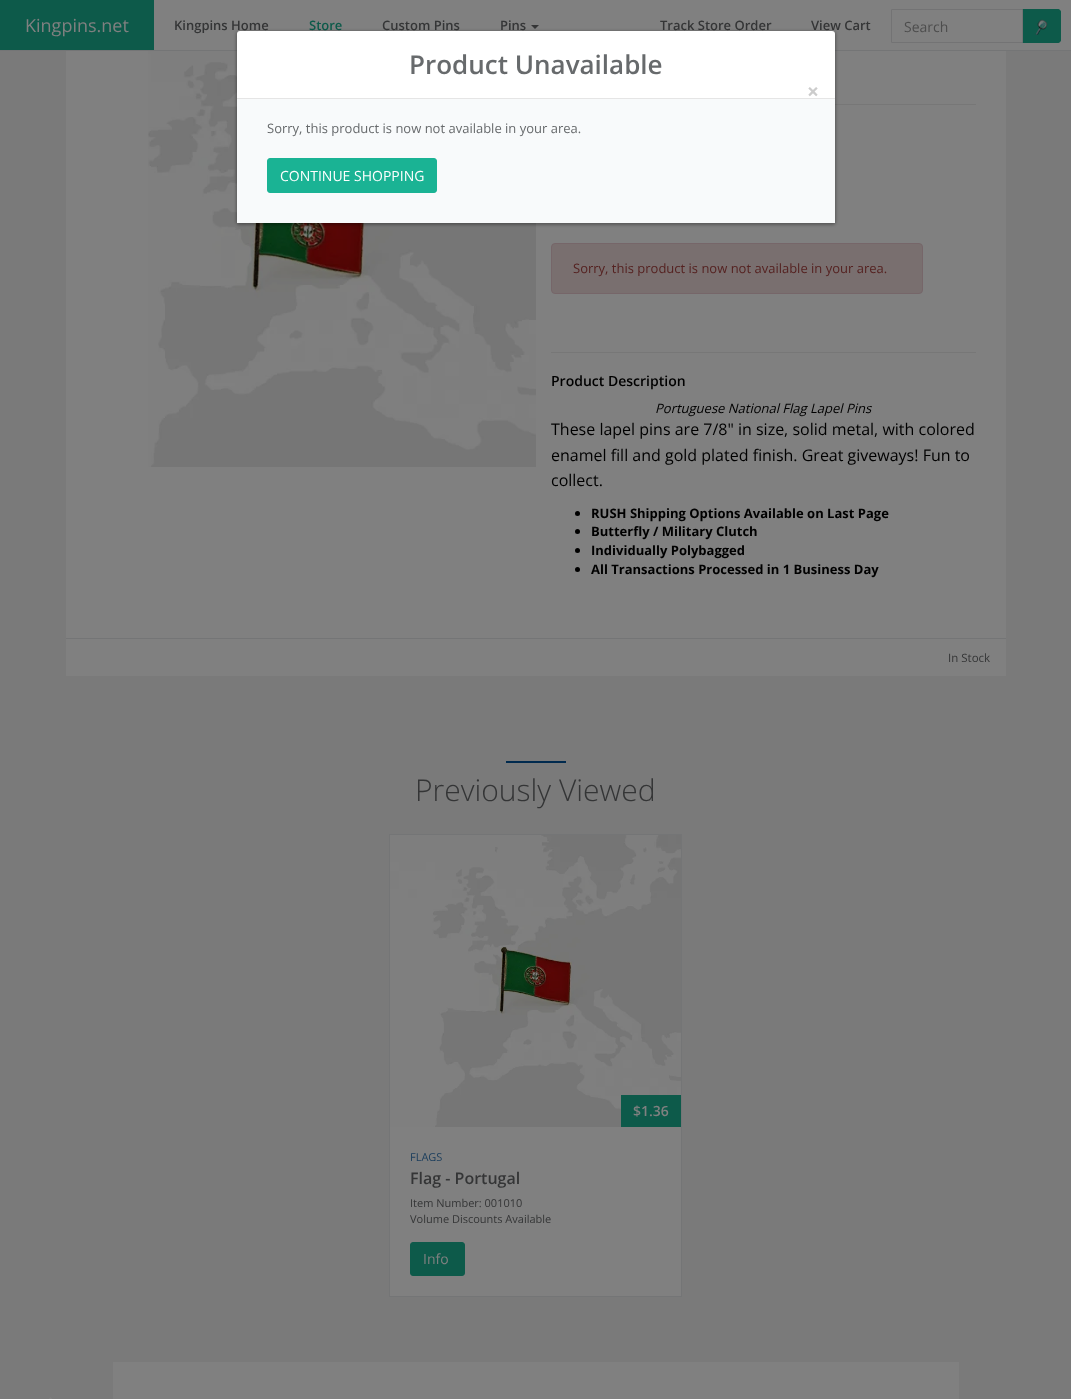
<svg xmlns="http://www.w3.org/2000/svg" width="1071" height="1399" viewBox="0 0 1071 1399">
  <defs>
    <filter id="blur1" x="-50%" y="-200%" width="200%" height="500%"><feGaussianBlur stdDeviation="1.5"/></filter>
  </defs>
  <rect width="100%" height="100%" fill="#7a7a7a"/>
  <rect x="154" y="0" width="917" height="50" fill="#808080"/>
  <rect x="0" y="50" width="1071" height="1" fill="#747576"/>
  <rect x="0" y="0" width="154" height="50" fill="#0d5a4a"/>
  <text x="25" y="32" font-family="Open Sans" font-size="18" fill="#808080">Kingpins.net</text>
  <text x="174" y="30" font-family="Open Sans" font-size="13" font-weight="600" fill="#343536">Kingpins Home</text>
  <text x="309" y="30" font-family="Open Sans" font-size="13" font-weight="600" fill="#0d5a4a">Store</text>
  <text x="382" y="30" font-family="Open Sans" font-size="13" font-weight="600" fill="#343536">Custom Pins</text>
  <text x="500" y="30" font-family="Open Sans" font-size="13" font-weight="600" fill="#343536">Pins</text>
  <path d="M531 25H539L535 29Z" fill="#343536"/>
  <text x="660" y="30" font-family="Open Sans" font-size="13" font-weight="600" fill="#343536">Track Store Order</text>
  <text x="811" y="30" font-family="Open Sans" font-size="13" font-weight="600" fill="#343536">View Cart</text>
  <path d="M1022.5 9.5H1058C1059.5 9.5 1060.5 10.5 1060.5 12V40C1060.5 41.5 1059.5 42.5 1058 42.5H1022.5Z" fill="#0d5a4a" stroke="#0d5a4a"/>
  <path d="M892 9.5H1022.5V42.5H892C891.5 42.5 891.5 42.5 891.5 42V10C891.5 9.5 891.5 9.5 892 9.5Z" fill="#808080" stroke="#737374"/>
  <text x="904" y="32" font-family="Open Sans" font-size="14" fill="#4d4d4d">Search</text>
  <image x="1035" y="19" width="13" height="16" href="img1.png"/>
  <rect x="66" y="51" width="940" height="587" fill="#808080"/>
  <image x="148" y="51" width="388" height="416" href="img2.png"/>
  <rect x="835" y="104" width="141" height="1" fill="#777777"/>
  <rect x="551.5" y="243.5" width="371" height="50" rx="3.5" fill="#796f6f" stroke="#766669"/>
  <text x="573" y="273" font-family="Open Sans" font-size="13" fill="#552221">Sorry, this product is now not available in your area.</text>
  <rect x="551" y="352" width="425" height="1" fill="#777777"/>
  <text x="551" y="386" font-family="Open Sans" font-size="14" font-weight="600" fill="#000000">Product Description</text>
  <text x="655" y="413" font-family="Open Sans" font-size="13" font-style="italic" fill="#000000">Portuguese National Flag Lapel Pins</text>
  <text x="551" y="435" font-family="Open Sans" font-size="16" fill="#000000">These lapel pins are 7/8" in size, solid metal, with colored</text>
  <text x="551" y="461" font-family="Open Sans" font-size="16" fill="#000000">enamel fill and gold plated finish. Great giveways! Fun to</text>
  <text x="551" y="486" font-family="Open Sans" font-size="16" fill="#000000">collect.</text>
  <circle cx="577.5" cy="513.5" r="2.5" fill="#000000"/>
  <text x="591" y="518" font-family="Open Sans" font-size="13" font-weight="bold" fill="#000000">RUSH Shipping Options Available on Last Page</text>
  <circle cx="577.5" cy="531.5" r="2.5" fill="#000000"/>
  <text x="591" y="536" font-family="Open Sans" font-size="13" font-weight="bold" fill="#000000">Butterfly / Military Clutch</text>
  <circle cx="577.5" cy="550.5" r="2.5" fill="#000000"/>
  <text x="591" y="555" font-family="Open Sans" font-size="13" font-weight="bold" fill="#000000">Individually Polybagged</text>
  <circle cx="577.5" cy="569.5" r="2.5" fill="#000000"/>
  <text x="591" y="574" font-family="Open Sans" font-size="13" font-weight="bold" fill="#000000">All Transactions Processed in 1 Business Day</text>
  <rect x="66" y="639" width="940" height="37" fill="#808080"/>
  <rect x="66" y="638" width="940" height="1" fill="#747576"/>
  <text x="948" y="662" font-family="Open Sans" font-size="11.5" fill="#343536">In Stock</text>
  <rect x="506" y="761" width="60" height="2" fill="#002a4e"/>
  <text x="415" y="801" font-family="Open Sans" font-size="30" font-weight="300" fill="#343536">Previously Viewed</text>
  <rect x="390" y="1127" width="291" height="169" fill="#808080"/>
  <rect x="389.5" y="834.5" width="292" height="462" fill="none" stroke="#747576"/>
  <image x="390" y="835" width="291" height="292" href="img3.png"/>
  <rect x="621" y="1095" width="60" height="32" fill="#0d5a4a"/>
  <text x="633" y="1116" font-family="Open Sans" font-size="14" font-weight="600" fill="#808080">$1.36</text>
  <text x="410" y="1161" font-family="Open Sans" font-size="11" fill="#1a3d5c">FLAGS</text>
  <text x="410" y="1184" font-family="Open Sans" font-size="16" font-weight="600" fill="#343536">Flag - Portugal</text>
  <text x="410" y="1207" font-family="Open Sans" font-size="11" fill="#343536">Item Number: 001010</text>
  <text x="410" y="1223" font-family="Open Sans" font-size="11" fill="#343536">Volume Discounts Available</text>
  <rect x="410.5" y="1242.5" width="54" height="33" rx="2.5" fill="#0d5a4a" stroke="#0d5a4a"/>
  <text x="423" y="1264" font-family="Open Sans" font-size="14" fill="#808080">Info</text>
  <path d="M35.5 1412L50.5 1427L56.5 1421L47.5 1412L56.5 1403L50.5 1397Z" fill="#808080"/>
  <rect x="113" y="1362" width="846" height="37" fill="#808080"/>
  <rect x="236" y="31" width="600" height="194" rx="4" fill="#000000" fill-opacity="0.3" filter="url(#blur1)"/>
  <rect x="237" y="31" width="598" height="192" rx="3" fill="#ffffff"/>
  <rect x="237" y="98" width="598" height="1" fill="#e5e5e5"/>
  <text x="409" y="74" font-family="Open Sans" font-size="26" font-weight="600" fill="#676a6c">Product Unavailable</text>
  <text x="807" y="99" font-family="Open Sans" font-size="21" font-weight="bold" fill="#cccccc">×</text>
  <rect x="237" y="99" width="598" height="124" fill="#f8fafb"/>
  <text x="267" y="133" font-family="Open Sans" font-size="13" fill="#676a6c">Sorry, this product is now not available in your area.</text>
  <rect x="267.5" y="158.5" width="169" height="34" rx="2.5" fill="#1ab394" stroke="#1ab394"/>
  <text x="280" y="181" font-family="Open Sans" font-size="14" fill="#ffffff">CONTINUE SHOPPING</text>
</svg>
